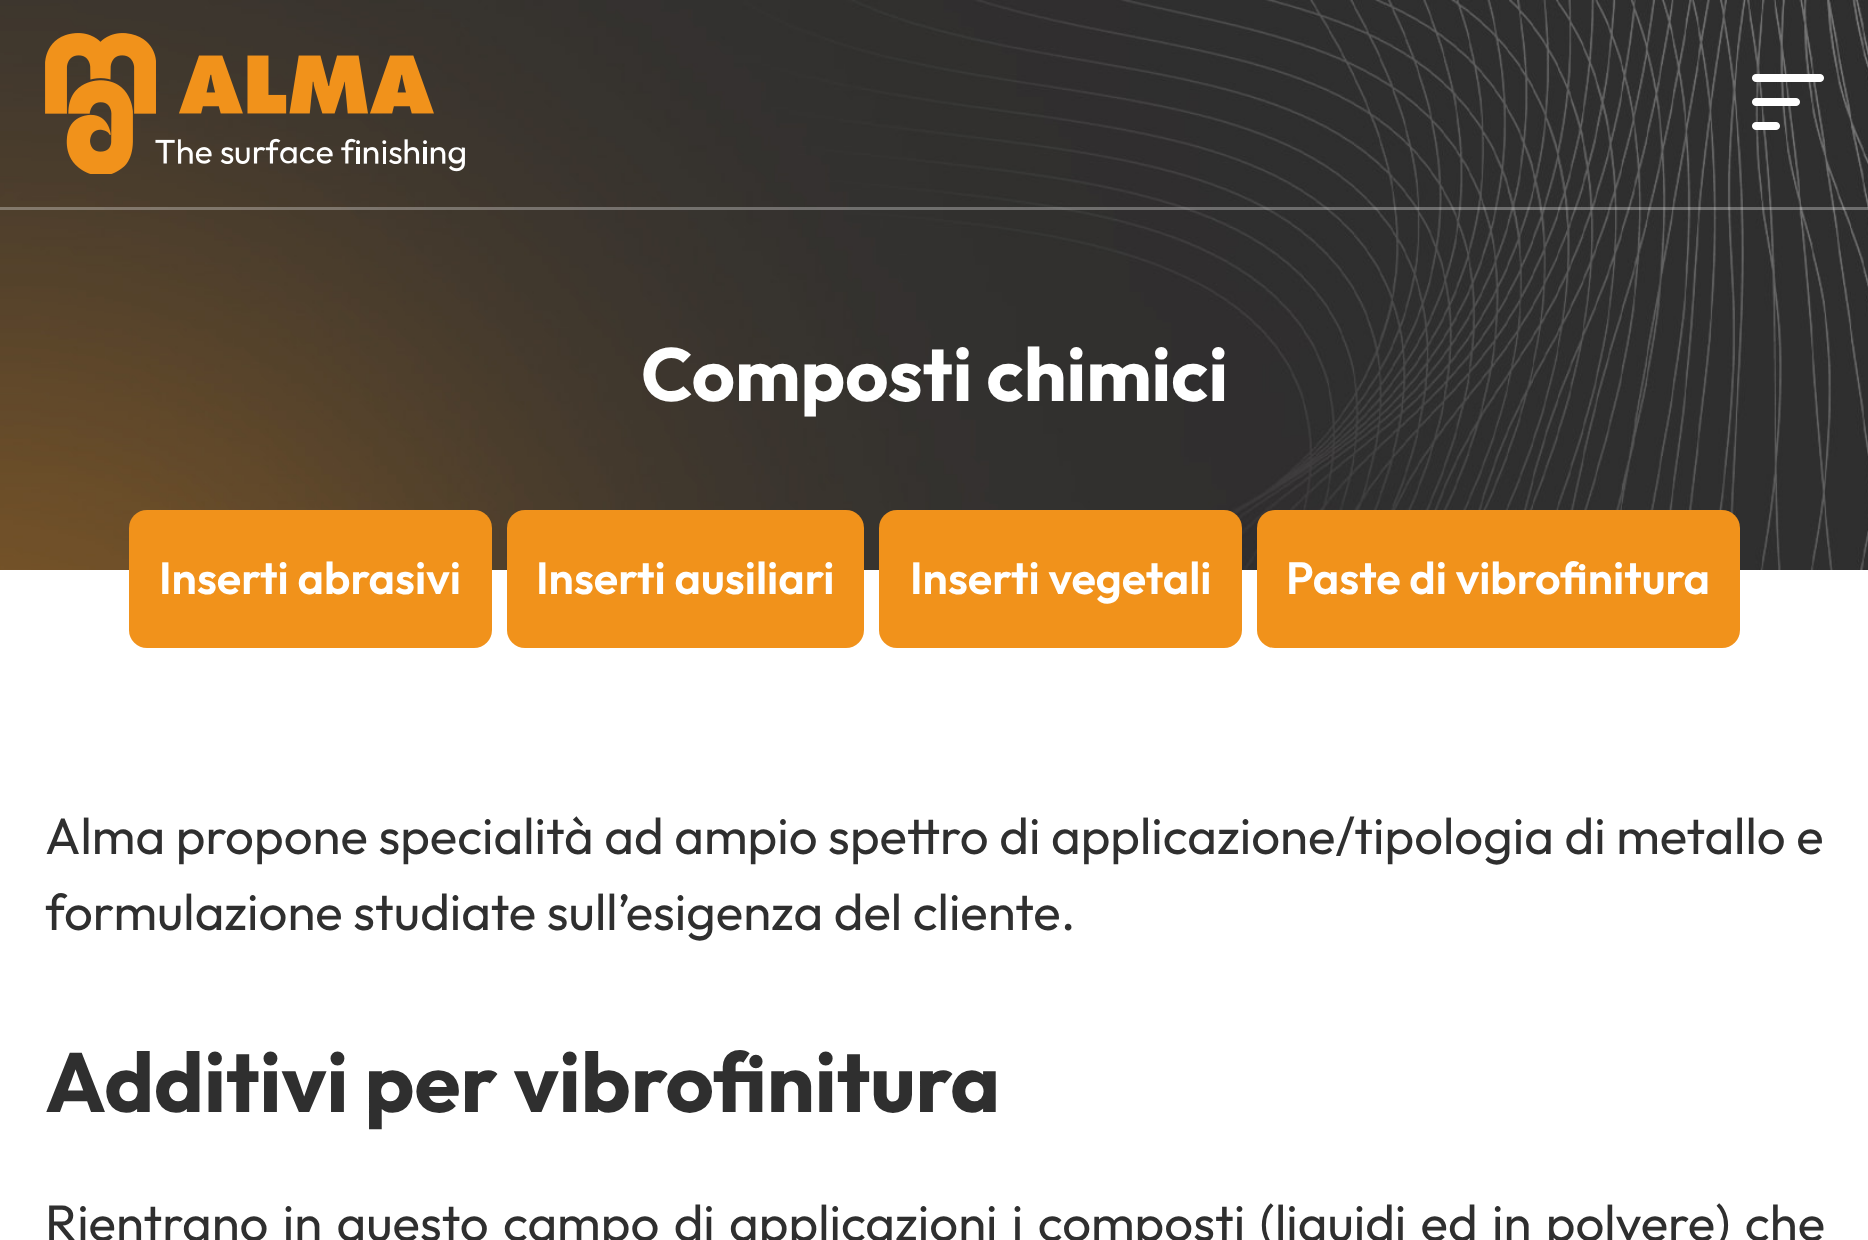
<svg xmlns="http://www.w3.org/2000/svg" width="1868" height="1240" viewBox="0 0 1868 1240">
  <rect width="100%" height="100%" fill="#ffffff"/>
  <image x="0" y="0" width="1868" height="570" href="img3.png"/>
  <rect x="0" y="207" width="1868" height="3" fill="#ffffff" fill-opacity="0.3"/>
  <image x="45" y="33" width="420" height="141" href="img1.png"/>
  <image x="1752" y="74" width="72" height="56" href="img2.png"/>
  <text x="641" y="401" font-family="Outfit" font-size="75" font-weight="bold" fill="#ffffff">Composti chimici</text>
  <rect x="129" y="510" width="363" height="138" rx="18" fill="#f1921b"/>
  <text x="159" y="594" font-family="Outfit" font-size="45" font-weight="600" fill="#ffffff">Inserti abrasivi</text>
  <rect x="507" y="510" width="357" height="138" rx="18" fill="#f1921b"/>
  <text x="536" y="594" font-family="Outfit" font-size="45" font-weight="600" fill="#ffffff">Inserti ausiliari</text>
  <rect x="879" y="510" width="363" height="138" rx="18" fill="#f1921b"/>
  <text x="910" y="594" font-family="Outfit" font-size="45" font-weight="600" fill="#ffffff">Inserti vegetali</text>
  <rect x="1257" y="510" width="483" height="138" rx="18" fill="#f1921b"/>
  <text x="1286" y="594" font-family="Outfit" font-size="45" font-weight="600" fill="#ffffff">Paste di vibrofinitura</text>
  <text x="45" y="854" font-family="Outfit" font-size="51" fill="#2f2f2f">Alma propone specialità ad ampio spettro di applicazione/tipologia di metallo e</text>
  <text x="45" y="930" font-family="Outfit" font-size="51" fill="#2f2f2f">formulazione studiate sull’esigenza del cliente.</text>
  <text x="45" y="1112" font-family="Outfit" font-size="84" font-weight="bold" fill="#2f2f2f">Additivi per vibrofinitura</text>
  <text x="45" y="1241" word-spacing="3.75" font-family="Outfit" font-size="51" fill="#2f2f2f">Rientrano in questo campo di applicazioni i composti (liquidi ed in polvere) che</text>
</svg>
